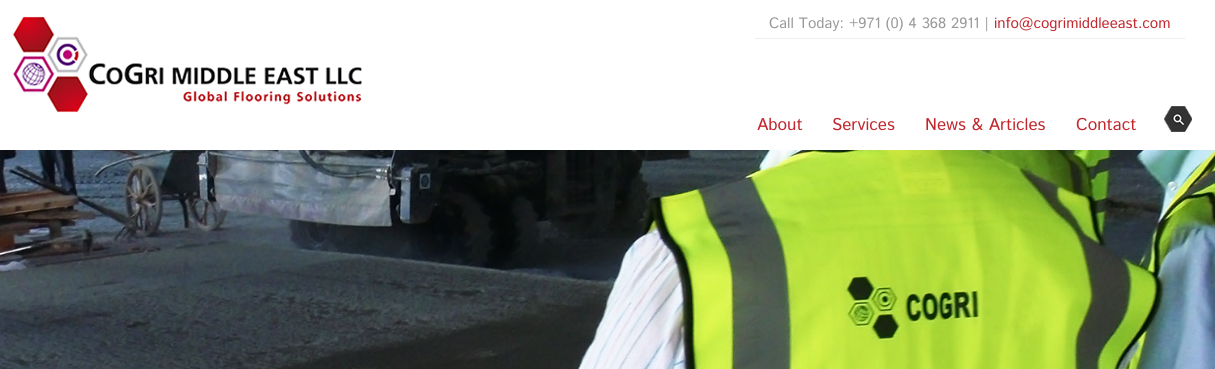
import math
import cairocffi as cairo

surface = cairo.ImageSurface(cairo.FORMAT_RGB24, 1215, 369)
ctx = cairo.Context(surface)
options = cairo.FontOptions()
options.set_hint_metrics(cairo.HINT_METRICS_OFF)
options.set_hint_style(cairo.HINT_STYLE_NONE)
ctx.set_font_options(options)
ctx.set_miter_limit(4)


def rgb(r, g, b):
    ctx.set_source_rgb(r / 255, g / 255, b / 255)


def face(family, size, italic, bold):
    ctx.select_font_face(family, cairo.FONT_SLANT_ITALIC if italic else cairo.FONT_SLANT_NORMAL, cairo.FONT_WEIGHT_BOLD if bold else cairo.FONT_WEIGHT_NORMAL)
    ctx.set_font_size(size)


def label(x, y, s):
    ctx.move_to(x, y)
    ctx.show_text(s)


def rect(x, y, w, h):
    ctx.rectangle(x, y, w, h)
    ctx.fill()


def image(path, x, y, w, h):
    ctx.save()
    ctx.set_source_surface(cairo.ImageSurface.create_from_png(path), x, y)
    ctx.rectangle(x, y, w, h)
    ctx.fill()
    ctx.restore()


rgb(255, 255, 255)
ctx.paint()
image('image0.png', 12, 16, 350, 97)
rgb(238, 238, 238)
rect(755, 38, 430, 1)
face('Istok Web', 15, 0, 0)
rgb(153, 153, 153)
label(769, 28, 'Call Today: +971 (0) 4 368 2911 |')
rgb(193, 39, 45)
label(994, 28, 'info@cogrimiddleeast.com')
face('Istok Web', 17, 0, 0)
label(757, 130, 'About')
label(832, 130, 'Services')
label(925, 130, 'News & Articles')
label(1076, 130, 'Contact')
image('image1.png', 1164, 106, 28, 26)
image('image2.png', 0, 150, 1215, 219)
surface.write_to_png('render.png')
